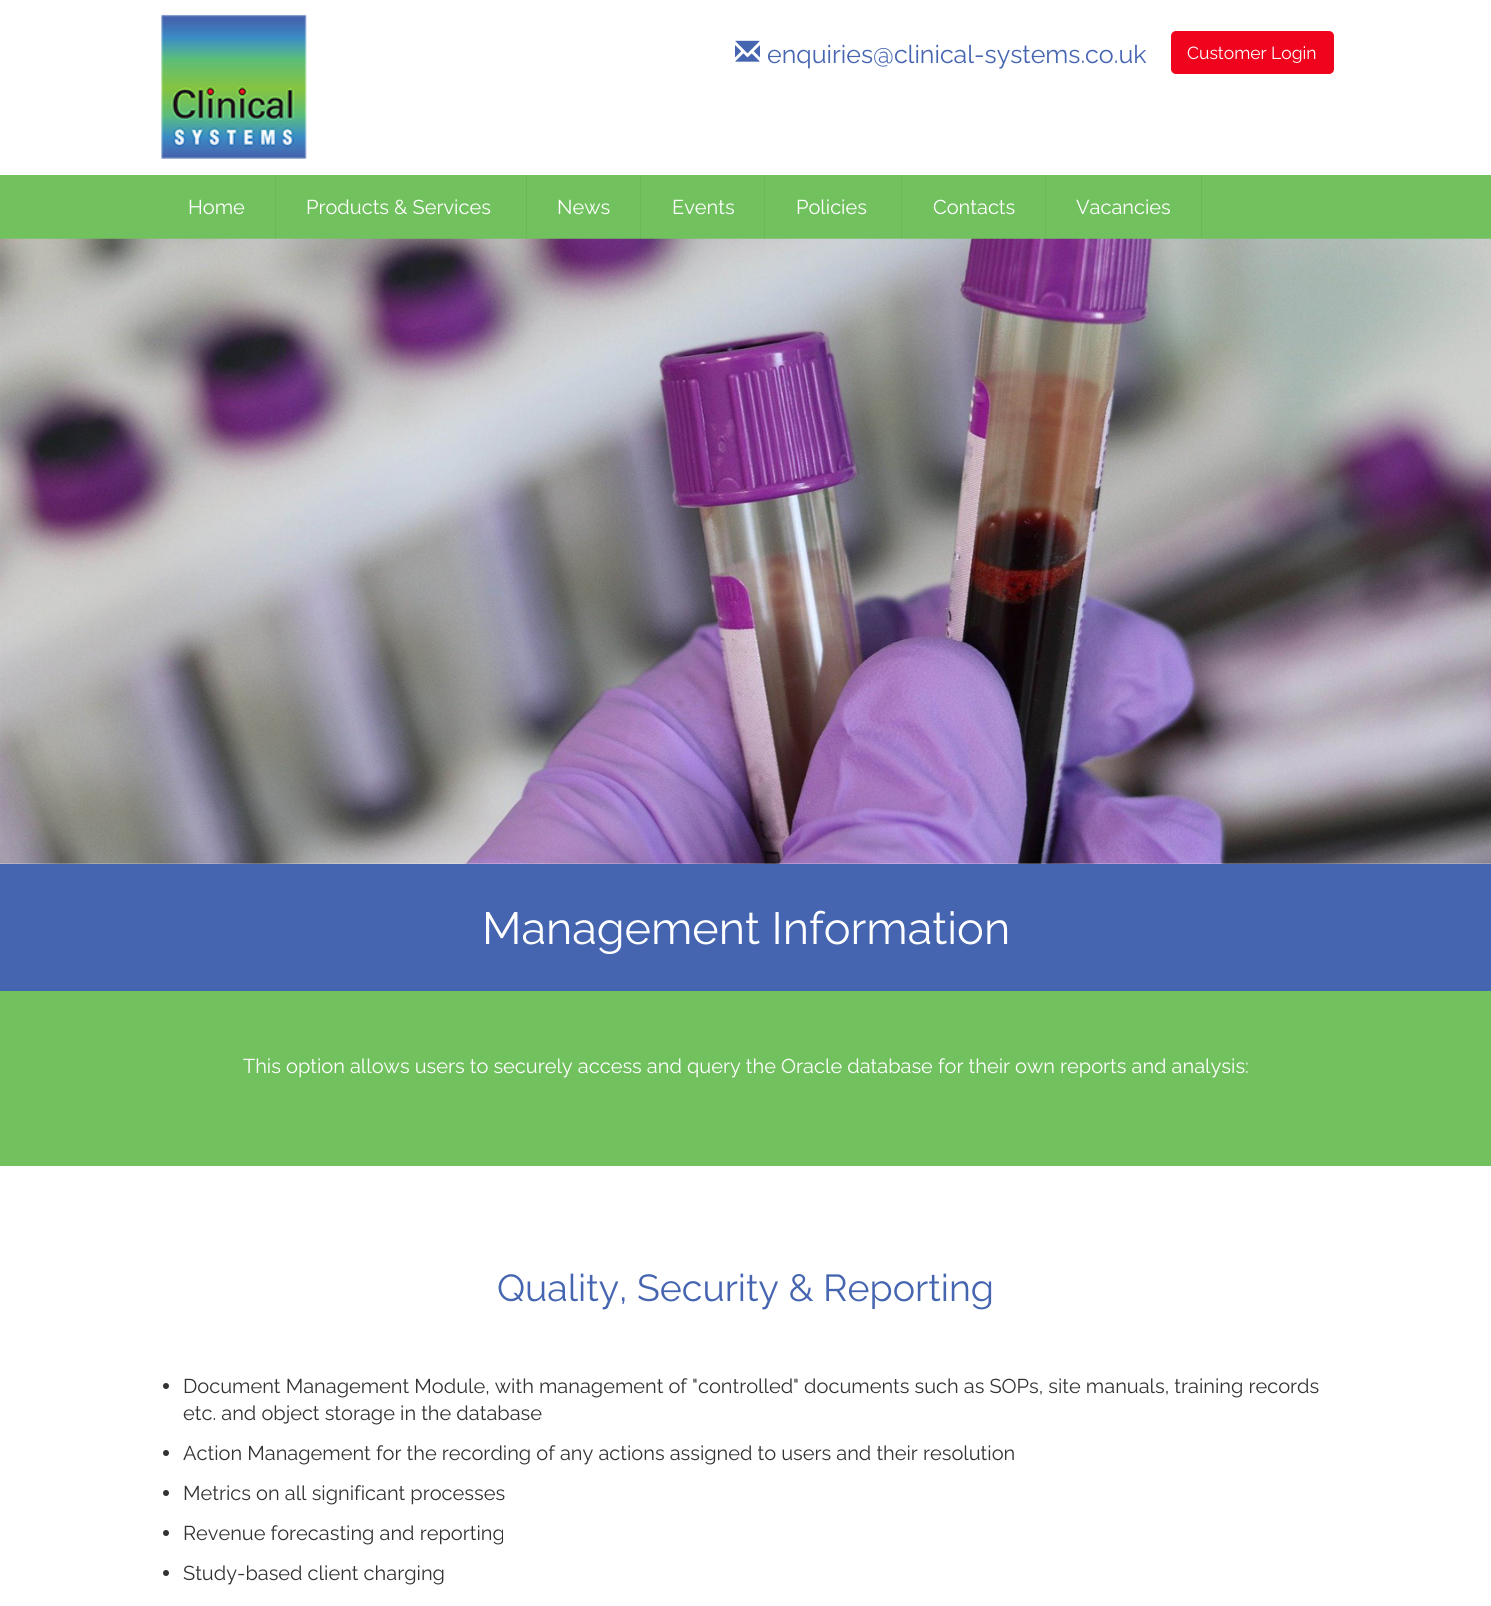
import math
import cairocffi as cairo

surface = cairo.ImageSurface(cairo.FORMAT_RGB24, 1491, 1606)
ctx = cairo.Context(surface)
options = cairo.FontOptions()
options.set_hint_metrics(cairo.HINT_METRICS_OFF)
options.set_hint_style(cairo.HINT_STYLE_NONE)
ctx.set_font_options(options)
ctx.set_miter_limit(4)


def rgb(r, g, b):
    ctx.set_source_rgb(r / 255, g / 255, b / 255)


def face(family, size, italic, bold):
    ctx.select_font_face(family, cairo.FONT_SLANT_ITALIC if italic else cairo.FONT_SLANT_NORMAL, cairo.FONT_WEIGHT_BOLD if bold else cairo.FONT_WEIGHT_NORMAL)
    ctx.set_font_size(size)


def label(x, y, s):
    ctx.move_to(x, y)
    ctx.show_text(s)


def rect(x, y, w, h):
    ctx.rectangle(x, y, w, h)
    ctx.fill()


def rrect(x, y, w, h, r):
    ctx.new_sub_path()
    for i, (u, v) in enumerate([(x + w - r, y + h - r), (x + r, y + h - r), (x + r, y + r), (x + w - r, y + r)]):
        ctx.arc(u, v, r, i * math.pi / 2, (i + 1) * math.pi / 2)
    ctx.close_path()


def image(path, x, y, w, h):
    ctx.save()
    ctx.set_source_surface(cairo.ImageSurface.create_from_png(path), x, y)
    ctx.rectangle(x, y, w, h)
    ctx.fill()
    ctx.restore()


rgb(255, 255, 255)
ctx.paint()
image('image0.png', 161, 14, 146, 145)
image('image1.png', 735, 40, 25, 22)
face('Raleway', 25, 0, 0)
rgb(69, 101, 176)
label(767, 63, 'enquiries@clinical-systems.co.uk')
rgb(240, 4, 29)
rrect(1171, 31, 163, 43, 5)
ctx.fill()
face('Raleway', 17.5, 0, 0)
rgb(255, 255, 255)
label(1187, 59, 'Customer Login')
rgb(113, 193, 95)
rect(0, 175, 1491, 64)
rgb(107, 183, 90)
rect(275, 175, 1, 64)
face('Raleway', 20, 0, 0)
rgb(255, 255, 255)
label(188, 214, 'Home')
rgb(107, 183, 90)
rect(526, 175, 1, 64)
rgb(255, 255, 255)
label(306, 214, 'Products & Services')
rgb(107, 183, 90)
rect(640, 175, 1, 64)
rgb(255, 255, 255)
label(557, 214, 'News')
rgb(107, 183, 90)
rect(764, 175, 1, 64)
rgb(255, 255, 255)
label(672, 214, 'Events')
rgb(107, 183, 90)
rect(901, 175, 1, 64)
rgb(255, 255, 255)
label(796, 214, 'Policies')
rgb(107, 183, 90)
rect(1045, 175, 1, 64)
rgb(255, 255, 255)
label(933, 214, 'Contacts')
rgb(107, 183, 90)
rect(1201, 175, 1, 64)
rgb(255, 255, 255)
label(1076, 214, 'Vacancies')
image('image2.png', 0, 238, 1491, 626)
rgb(69, 101, 176)
rect(0, 864, 1491, 127)
face('Raleway', 45, 0, 0)
rgb(255, 255, 255)
label(482, 944, 'Management Information')
rgb(113, 193, 95)
rect(0, 991, 1491, 175)
face('Raleway', 20, 0, 0)
rgb(255, 255, 255)
label(243, 1073, 'This option allows users to securely access and query the Oracle database for their own reports and analysis:')
face('Raleway', 37.5, 0, 0)
rgb(69, 101, 176)
label(497, 1301, 'Quality, Security & Reporting')
rgb(51, 51, 51)
ctx.new_path()
ctx.arc(166, 1386, 3, 0, 2 * math.pi)
ctx.fill()
face('Raleway', 20, 0, 0)
label(183, 1393, 'Document Management Module, with management of "controlled" documents such as SOPs, site manuals, training records')
label(183, 1420, 'etc. and object storage in the database')
ctx.new_path()
ctx.arc(166, 1453, 3, 0, 2 * math.pi)
ctx.fill()
label(183, 1460, 'Action Management for the recording of any actions assigned to users and their resolution')
ctx.new_path()
ctx.arc(166, 1493, 3, 0, 2 * math.pi)
ctx.fill()
label(183, 1500, 'Metrics on all significant processes')
ctx.new_path()
ctx.arc(166, 1533, 3, 0, 2 * math.pi)
ctx.fill()
label(183, 1540, 'Revenue forecasting and reporting')
ctx.new_path()
ctx.arc(166, 1573, 3, 0, 2 * math.pi)
ctx.fill()
label(183, 1580, 'Study-based client charging')
surface.write_to_png('render.png')
